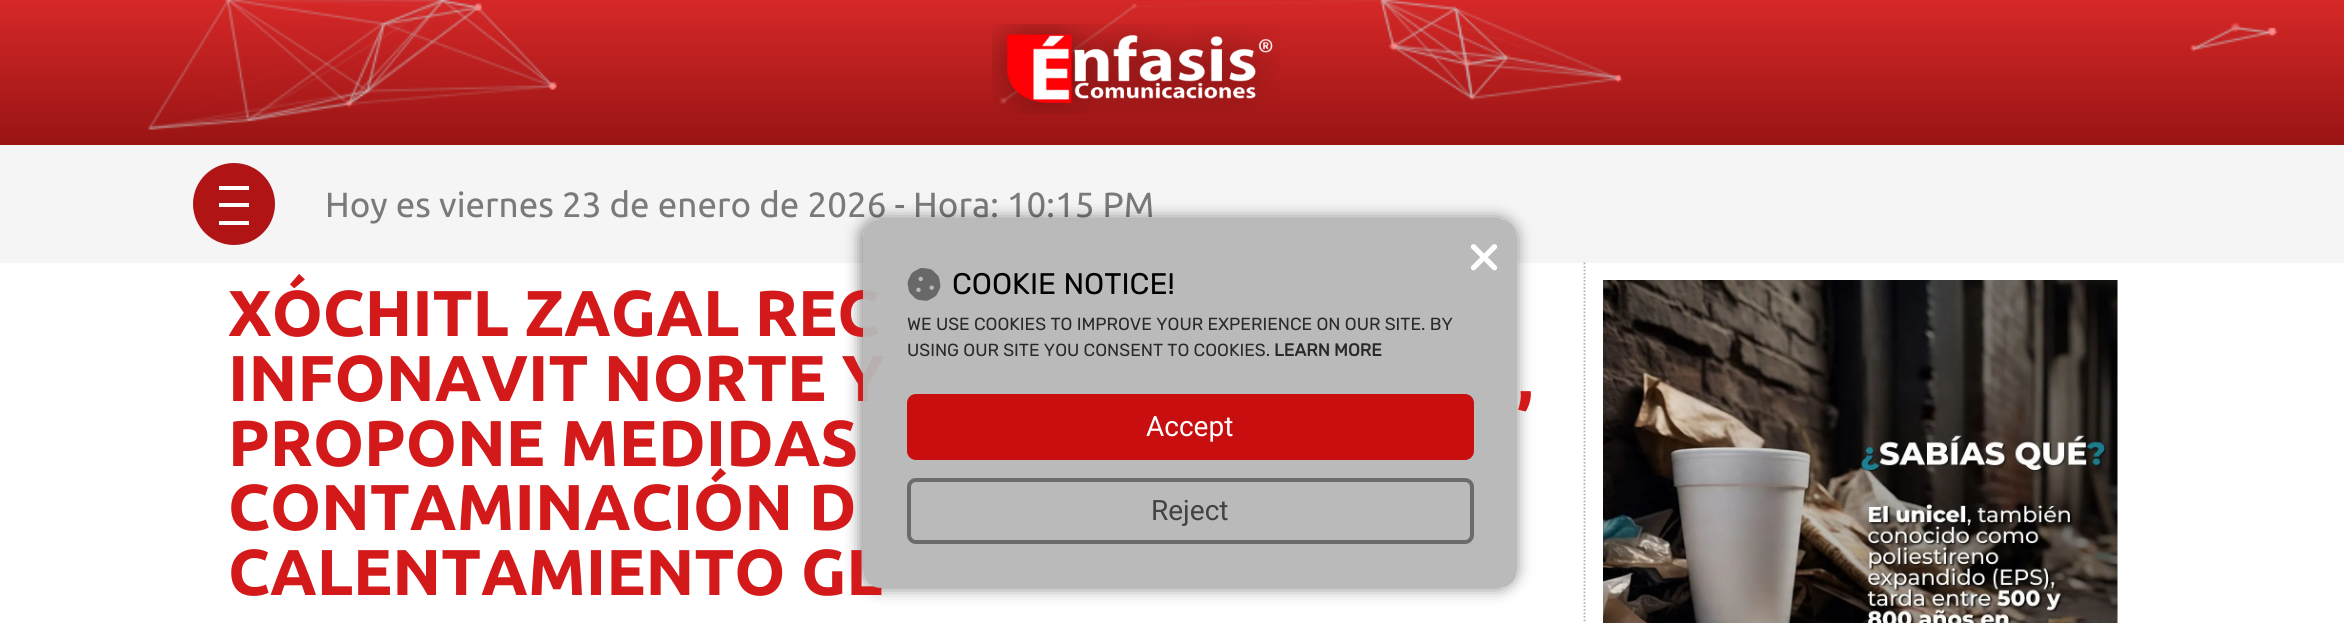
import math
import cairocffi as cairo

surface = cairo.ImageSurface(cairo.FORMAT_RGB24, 2344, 623)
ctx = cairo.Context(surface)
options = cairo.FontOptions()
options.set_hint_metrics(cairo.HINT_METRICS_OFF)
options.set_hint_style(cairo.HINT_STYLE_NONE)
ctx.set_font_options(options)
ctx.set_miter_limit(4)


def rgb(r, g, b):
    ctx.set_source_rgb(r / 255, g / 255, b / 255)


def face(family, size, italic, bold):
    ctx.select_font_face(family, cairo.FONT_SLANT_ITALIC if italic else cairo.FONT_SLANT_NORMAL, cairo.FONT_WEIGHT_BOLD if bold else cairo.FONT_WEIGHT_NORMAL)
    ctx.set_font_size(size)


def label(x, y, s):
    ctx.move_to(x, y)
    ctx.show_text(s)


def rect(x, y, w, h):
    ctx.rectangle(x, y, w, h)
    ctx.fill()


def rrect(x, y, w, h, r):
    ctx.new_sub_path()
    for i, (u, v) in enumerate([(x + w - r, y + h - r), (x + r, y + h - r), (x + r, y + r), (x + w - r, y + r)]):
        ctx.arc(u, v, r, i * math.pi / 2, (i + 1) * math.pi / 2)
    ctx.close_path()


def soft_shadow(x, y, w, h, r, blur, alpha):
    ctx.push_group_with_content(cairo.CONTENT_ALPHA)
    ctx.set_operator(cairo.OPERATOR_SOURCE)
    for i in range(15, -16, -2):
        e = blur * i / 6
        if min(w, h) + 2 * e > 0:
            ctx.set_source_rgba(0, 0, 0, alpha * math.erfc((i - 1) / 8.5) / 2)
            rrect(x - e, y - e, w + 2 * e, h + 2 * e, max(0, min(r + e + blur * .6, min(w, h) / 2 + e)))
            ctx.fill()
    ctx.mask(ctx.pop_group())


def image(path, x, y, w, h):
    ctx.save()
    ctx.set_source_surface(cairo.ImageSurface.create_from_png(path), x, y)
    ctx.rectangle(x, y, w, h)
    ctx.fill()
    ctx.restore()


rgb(255, 255, 255)
ctx.paint()
gradient = cairo.LinearGradient(1173, 0, 1173, 145)
gradient.add_color_stop_rgba(0, 0.839, 0.157, 0.157, 1)
gradient.add_color_stop_rgba(1, 0.6, 0.078, 0.078, 1)
ctx.set_source(gradient)
rect(0, 0, 2344, 145)
image('image0.png', 148, 0, 2130, 130)
image('image1.png', 992, 24, 289, 90)
rgb(245, 245, 245)
rect(0, 145, 2344, 118)
rgb(177, 20, 20)
ctx.arc(234, 204, 41, 0, 2 * math.pi)
ctx.fill()
rgb(255, 255, 255)
rect(219, 203, 30, 4)
rect(219, 186, 30, 4)
rect(219, 221, 30, 4)
face('Ubuntu', 35, 0, 0)
rgb(122, 122, 122)
label(325, 217, 'Hoy es viernes 23 de enero de 2026 - Hora: 10:15 PM')
ctx.save()
ctx.set_fill_rule(cairo.FILL_RULE_EVEN_ODD)
ctx.new_path()
ctx.move_to(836, 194)
ctx.line_to(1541, 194)
ctx.line_to(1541, 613)
ctx.line_to(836, 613)
ctx.close_path()
ctx.move_to(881, 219)
ctx.line_to(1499, 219)
ctx.curve_to(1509, 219, 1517, 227, 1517, 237)
ctx.line_to(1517, 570)
ctx.curve_to(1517, 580, 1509, 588, 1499, 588)
ctx.line_to(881, 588)
ctx.curve_to(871, 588, 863, 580, 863, 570)
ctx.line_to(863, 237)
ctx.curve_to(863, 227, 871, 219, 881, 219)
ctx.close_path()
ctx.clip()
rgb(0, 0, 0)
soft_shadow(861, 219, 655, 369, 18, 8, 0.5)
ctx.restore()
face('Ubuntu', 64.75, 0, 1)
rgb(211, 25, 25)
label(228, 336, 'XÓCHITL ZAGAL REC')
label(228, 401, 'INFONAVIT NORTE Y')
label(228, 595, 'CALENTAMIENTO GL')
ctx.set_source_rgba(0.718, 0.718, 0.718, 0.95)
rrect(863, 219, 654, 369, 18)
ctx.fill()
image('image2.png', 1470, 244, 28, 27)
image('image3.png', 907, 268, 34, 33)
face('Rubik', 29.75, 0, 0)
rgb(0, 0, 0)
label(952, 294, 'COOKIE NOTICE!')
face('Rubik', 17.5, 0, 0)
rgb(42, 42, 42)
label(907, 330, 'WE USE COOKIES TO IMPROVE YOUR EXPERIENCE ON OUR SITE. BY')
label(907, 356, 'USING OUR SITE YOU CONSENT TO COOKIES.')
face('Rubik', 17.5, 0, 1)
label(1274, 356, 'LEARN MORE')
rgb(200, 14, 14)
rrect(907, 394, 567, 66, 9)
ctx.fill()
face('Roboto', 28, 0, 0)
rgb(255, 255, 255)
label(1146, 436, 'Accept')
rrect(909, 480, 563, 62, 7)
rgb(107, 107, 107)
ctx.set_line_width(4)
ctx.stroke()
rgb(66, 66, 66)
label(1151, 520, 'Reject')
face('Ubuntu', 64.75, 0, 1)
rgb(211, 25, 25)
label(1517, 401, ',')
label(228, 466, 'PROPONE MEDIDAS')
label(228, 530, 'CONTAMINACIÓN D')
ctx.new_path()
ctx.move_to(1584.5, 262.5)
ctx.line_to(1584.5, 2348.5)
ctx.set_source_rgba(0.329, 0.329, 0.329, 0.43)
ctx.set_line_width(1.8)
ctx.set_dash([1.75, 1.75])
ctx.stroke()
image('image4.png', 1603, 280, 515, 343)
surface.write_to_png('render.png')
